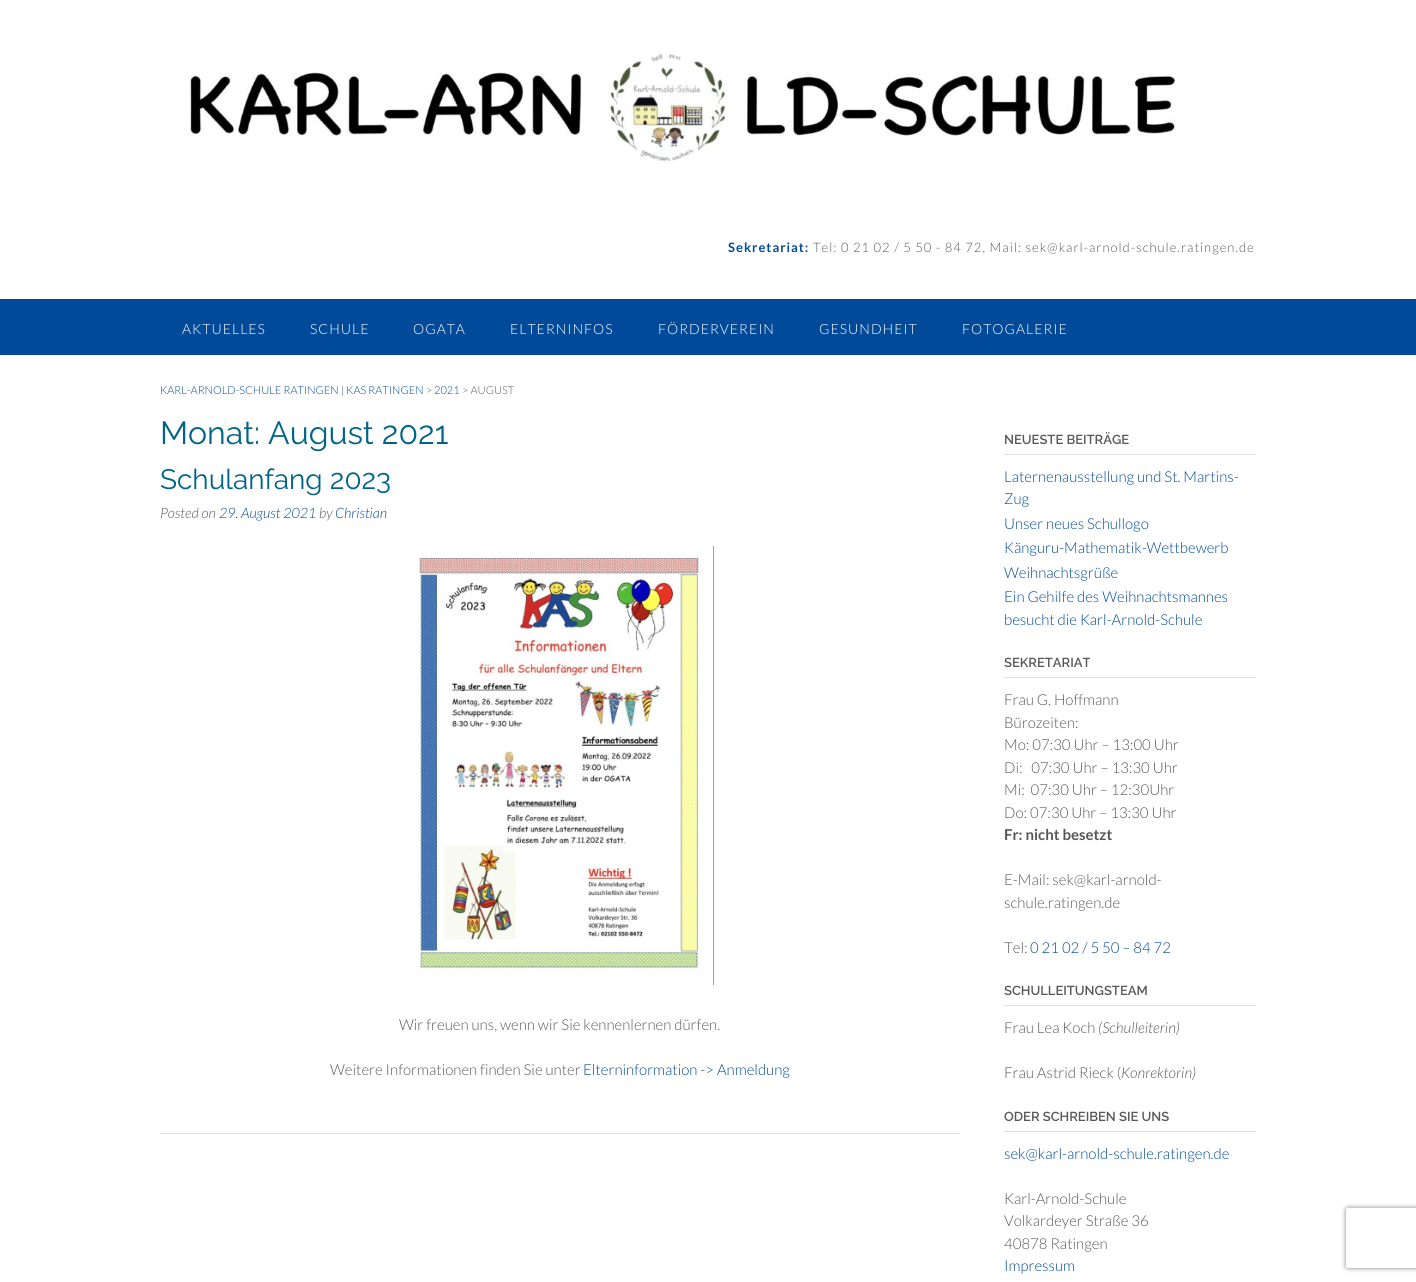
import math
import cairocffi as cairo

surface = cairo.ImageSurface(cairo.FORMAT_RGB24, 1416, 1282)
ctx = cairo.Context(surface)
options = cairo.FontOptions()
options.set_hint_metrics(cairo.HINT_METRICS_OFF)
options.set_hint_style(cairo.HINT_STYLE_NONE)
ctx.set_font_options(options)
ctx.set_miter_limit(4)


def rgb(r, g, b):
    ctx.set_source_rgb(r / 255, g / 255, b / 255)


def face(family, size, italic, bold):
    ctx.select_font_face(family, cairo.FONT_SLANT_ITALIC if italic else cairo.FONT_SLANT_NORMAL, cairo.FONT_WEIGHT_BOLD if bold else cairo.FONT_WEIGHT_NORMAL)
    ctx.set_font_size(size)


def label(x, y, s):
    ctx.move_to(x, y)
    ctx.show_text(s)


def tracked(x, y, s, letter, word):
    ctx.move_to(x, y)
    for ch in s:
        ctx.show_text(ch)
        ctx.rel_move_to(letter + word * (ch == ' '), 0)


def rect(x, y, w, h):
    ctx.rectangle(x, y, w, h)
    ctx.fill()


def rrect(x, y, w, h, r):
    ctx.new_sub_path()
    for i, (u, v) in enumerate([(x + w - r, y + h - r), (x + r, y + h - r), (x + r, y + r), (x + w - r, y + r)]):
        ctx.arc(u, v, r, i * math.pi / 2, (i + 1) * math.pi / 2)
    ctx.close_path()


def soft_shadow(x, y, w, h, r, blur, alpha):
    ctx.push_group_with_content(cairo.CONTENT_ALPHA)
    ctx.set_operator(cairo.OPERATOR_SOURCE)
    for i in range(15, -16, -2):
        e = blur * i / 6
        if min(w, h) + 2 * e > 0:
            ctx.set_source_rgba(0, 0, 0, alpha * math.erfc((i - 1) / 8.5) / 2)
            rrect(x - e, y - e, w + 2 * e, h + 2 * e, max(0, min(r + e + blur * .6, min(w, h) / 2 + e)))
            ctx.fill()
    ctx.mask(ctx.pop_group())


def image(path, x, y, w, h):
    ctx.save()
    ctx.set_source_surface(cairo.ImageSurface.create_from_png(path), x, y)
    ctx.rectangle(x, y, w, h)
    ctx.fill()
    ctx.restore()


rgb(255, 255, 255)
ctx.paint()
image('image0.png', 189, 50, 987, 114)
face('Lato', 13, 0, 1)
rgb(0, 74, 153)
tracked(728, 252, 'Sekretariat:', 1, 0)
face('Lato Light', 13, 0, 0)
rgb(88, 88, 90)
tracked(813, 252, 'Tel: 0 21 02 / 5 50 - 84 72, Mail: sek@karl-arnold-schule.ratingen.de', 1, 0)
rgb(0, 74, 153)
rect(0, 299, 1416, 56)
face('Lato Light', 14, 0, 0)
rgb(255, 255, 255)
tracked(182, 334, 'AKTUELLES', 1, 0)
tracked(310, 334, 'SCHULE', 1, 0)
tracked(413, 334, 'OGATA', 1, 0)
tracked(510, 334, 'ELTERNINFOS', 1, 0)
tracked(658, 334, 'FÖRDERVEREIN', 1, 0)
tracked(819, 334, 'GESUNDHEIT', 1, 0)
tracked(962, 334, 'FOTOGALERIE', 1, 0)
face('Lato Light', 11, 0, 0)
rgb(0, 74, 153)
label(160, 394, 'KARL-ARNOLD-SCHULE RATINGEN | KAS RATINGEN')
rgb(88, 88, 90)
label(426, 394, '>')
rgb(0, 74, 153)
label(434, 394, '2021')
rgb(88, 88, 90)
label(462, 394, '> AUGUST')
face('Raleway', 32, 0, 0)
rgb(0, 100, 137)
label(160, 444, 'Monat: August 2021')
rgb(224, 224, 224)
rect(160, 1133, 800, 1)
face('Raleway', 28, 0, 0)
rgb(0, 100, 137)
label(160, 489, 'Schulanfang 2023')
face('Lato Light', 14.25, 1, 0)
rgb(88, 88, 90)
label(160, 518, 'Posted on')
rgb(0, 74, 153)
label(219, 518, '29. August 2021')
rgb(88, 88, 90)
label(319, 518, 'by')
rgb(0, 74, 153)
label(335, 518, 'Christian')
image('image1.png', 419, 546, 295, 439)
face('Lato Light', 15, 0, 0)
rgb(88, 88, 90)
label(399, 1030, 'Wir freuen uns, wenn wir Sie kennenlernen dürfen.')
label(330, 1075, 'Weitere Informationen finden Sie unter')
rgb(0, 74, 153)
label(583, 1075, 'Elterninformation -> Anmeldung')
rgb(224, 224, 224)
rect(1004, 454, 252, 1)
face('Raleway SemiBold', 13, 0, 0)
rgb(88, 88, 90)
label(1004, 444, 'NEUESTE BEITRÄGE')
face('Lato Light', 15, 0, 0)
rgb(0, 74, 153)
label(1004, 482, 'Laternenausstellung und St. Martins-')
label(1004, 504, 'Zug')
label(1004, 529, 'Unser neues Schullogo')
label(1004, 553, 'Känguru-Mathematik-Wettbewerb')
label(1004, 578, 'Weihnachtsgrüße')
label(1004, 602, 'Ein Gehilfe des Weihnachtsmannes')
label(1004, 625, 'besucht die Karl-Arnold-Schule')
rgb(224, 224, 224)
rect(1004, 677, 252, 1)
face('Raleway SemiBold', 13, 0, 0)
rgb(88, 88, 90)
label(1004, 667, 'SEKRETARIAT')
face('Lato Light', 15, 0, 0)
label(1004, 705, 'Frau G. Hoffmann')
label(1004, 728, 'Bürozeiten:')
label(1004, 750, 'Mo: 07:30 Uhr – 13:00 Uhr')
label(1004, 773, 'Di:   07:30 Uhr – 13:30 Uhr')
label(1004, 795, 'Mi:  07:30 Uhr – 12:30Uhr')
label(1004, 818, 'Do: 07:30 Uhr – 13:30 Uhr')
face('Lato', 15, 0, 1)
label(1004, 840, 'Fr: nicht besetzt')
face('Lato Light', 15, 0, 0)
label(1004, 885, 'E-Mail: sek@karl-arnold-')
label(1004, 908, 'schule.ratingen.de')
label(1004, 953, 'Tel:')
rgb(0, 74, 153)
label(1030, 953, '0 21 02 / 5 50 – 84 72')
rgb(224, 224, 224)
rect(1004, 1005, 252, 1)
face('Raleway SemiBold', 13, 0, 0)
rgb(88, 88, 90)
label(1004, 995, 'SCHULLEITUNGSTEAM')
face('Lato Light', 15, 0, 0)
label(1004, 1033, 'Frau Lea Koch')
face('Lato Light', 15, 1, 0)
label(1098, 1033, '(Schulleiterin)')
face('Lato Light', 15, 0, 0)
label(1004, 1078, 'Frau Astrid Rieck (')
face('Lato Light', 15, 1, 0)
label(1121, 1078, 'Konrektorin)')
rgb(224, 224, 224)
rect(1004, 1131, 252, 1)
face('Raleway SemiBold', 13, 0, 0)
rgb(88, 88, 90)
label(1004, 1121, 'ODER SCHREIBEN SIE UNS')
face('Lato Light', 15, 0, 0)
rgb(0, 74, 153)
label(1004, 1159, 'sek@karl-arnold-schule.ratingen.de')
rgb(88, 88, 90)
label(1004, 1204, 'Karl-Arnold-Schule')
label(1004, 1226, 'Volkardeyer Straße 36')
label(1004, 1249, '40878 Ratingen')
rgb(0, 74, 153)
label(1004, 1271, 'Impressum')
ctx.save()
ctx.set_fill_rule(cairo.FILL_RULE_EVEN_ODD)
ctx.new_path()
ctx.move_to(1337, 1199)
ctx.line_to(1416, 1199)
ctx.line_to(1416, 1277)
ctx.line_to(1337, 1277)
ctx.close_path()
ctx.move_to(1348, 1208)
ctx.line_to(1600, 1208)
ctx.curve_to(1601, 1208, 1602, 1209, 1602, 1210)
ctx.line_to(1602, 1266)
ctx.curve_to(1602, 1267, 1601, 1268, 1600, 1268)
ctx.line_to(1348, 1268)
ctx.curve_to(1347, 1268, 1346, 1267, 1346, 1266)
ctx.line_to(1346, 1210)
ctx.curve_to(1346, 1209, 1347, 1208, 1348, 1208)
ctx.close_path()
ctx.clip()
rgb(128, 128, 128)
soft_shadow(1346, 1208, 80, 60, 2, 2.5, 1)
ctx.restore()
surface.write_to_png('render.png')
